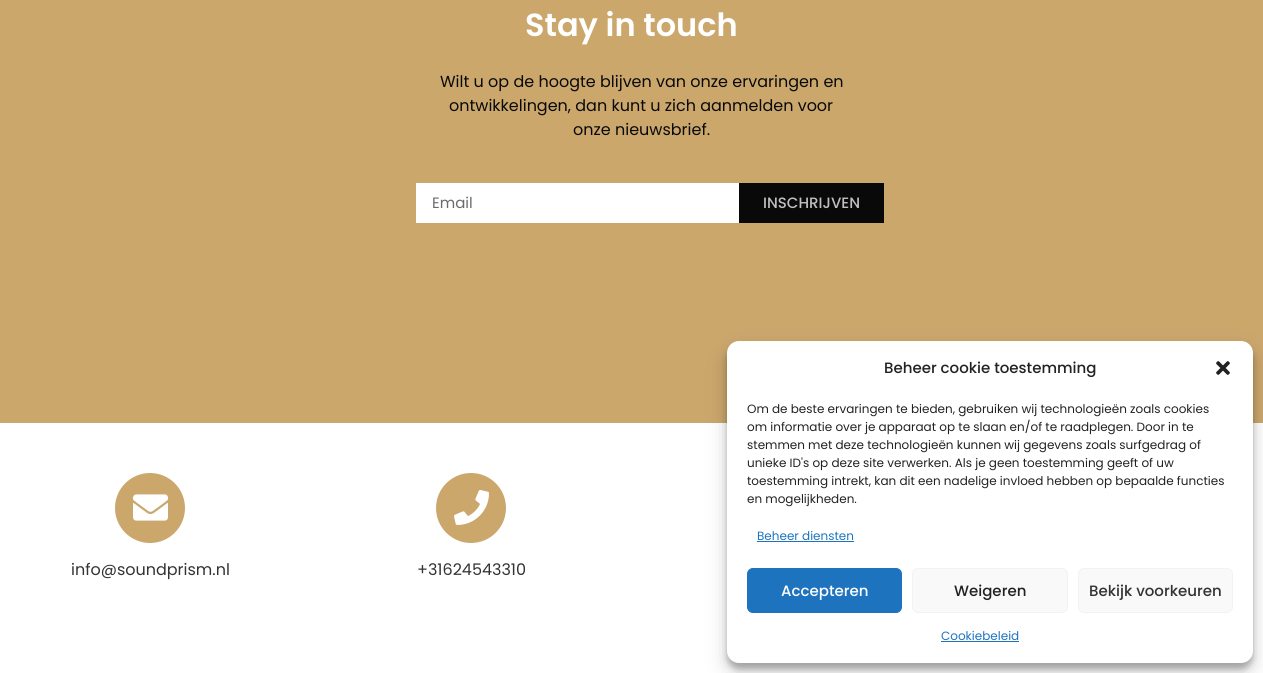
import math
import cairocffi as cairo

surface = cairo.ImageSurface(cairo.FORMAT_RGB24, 1263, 673)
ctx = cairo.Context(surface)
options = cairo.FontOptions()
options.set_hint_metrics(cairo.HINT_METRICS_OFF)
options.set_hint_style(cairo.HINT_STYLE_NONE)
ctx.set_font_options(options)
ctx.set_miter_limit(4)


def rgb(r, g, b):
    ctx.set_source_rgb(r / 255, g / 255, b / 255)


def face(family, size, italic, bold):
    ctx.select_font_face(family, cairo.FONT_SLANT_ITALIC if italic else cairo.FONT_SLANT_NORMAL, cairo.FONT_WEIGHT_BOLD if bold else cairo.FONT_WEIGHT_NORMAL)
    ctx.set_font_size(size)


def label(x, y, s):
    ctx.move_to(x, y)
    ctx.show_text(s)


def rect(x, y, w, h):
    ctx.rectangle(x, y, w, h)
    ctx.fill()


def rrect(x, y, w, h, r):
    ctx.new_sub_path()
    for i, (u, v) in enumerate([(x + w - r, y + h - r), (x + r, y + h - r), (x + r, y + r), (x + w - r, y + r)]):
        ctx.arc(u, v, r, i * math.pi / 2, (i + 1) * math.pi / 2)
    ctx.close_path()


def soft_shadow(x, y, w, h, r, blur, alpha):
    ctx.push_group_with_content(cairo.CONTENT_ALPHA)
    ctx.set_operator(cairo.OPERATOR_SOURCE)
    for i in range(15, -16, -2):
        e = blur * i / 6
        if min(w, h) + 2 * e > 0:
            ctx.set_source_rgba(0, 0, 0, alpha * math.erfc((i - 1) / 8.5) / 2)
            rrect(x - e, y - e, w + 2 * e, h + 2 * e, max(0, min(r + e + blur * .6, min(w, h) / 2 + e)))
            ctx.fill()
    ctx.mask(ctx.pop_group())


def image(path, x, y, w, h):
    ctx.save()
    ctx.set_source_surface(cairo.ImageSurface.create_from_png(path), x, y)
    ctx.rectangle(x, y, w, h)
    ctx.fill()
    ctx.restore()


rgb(255, 255, 255)
ctx.paint()
rgb(203, 167, 108)
rect(0, 0, 1263, 423)
face('Poppins SemiBold', 32, 0, 0)
rgb(255, 255, 255)
label(525, 36, 'Stay in touch')
face('Poppins', 16, 0, 0)
rgb(9, 9, 9)
label(440, 87, 'Wilt u op de hoogte blijven van onze ervaringen en')
label(449, 111, 'ontwikkelingen, dan kunt u zich aanmelden voor')
label(573, 135, 'onze nieuwsbrief.')
rgb(255, 255, 255)
rect(416, 183, 323, 40)
face('Poppins', 15, 0, 0)
rgb(107, 107, 107)
label(432, 208, 'Email')
rgb(9, 9, 9)
rect(739, 183, 145, 40)
face('Poppins Medium', 15, 0, 0)
rgb(192, 192, 192)
label(763, 208, 'INSCHRIJVEN')
rgb(203, 167, 108)
ctx.new_path()
ctx.arc(150, 508, 35, 0, 2 * math.pi)
ctx.fill()
image('image0.png', 133, 494, 35, 27)
face('Poppins', 16, 0, 0)
rgb(51, 51, 51)
label(71, 575, 'info@soundprism.nl')
rgb(203, 167, 108)
ctx.new_path()
ctx.arc(471, 508, 35, 0, 2 * math.pi)
ctx.fill()
image('image1.png', 454, 490, 35, 35)
rgb(51, 51, 51)
label(417, 575, '+31624543310')
rgb(0, 0, 0)
soft_shadow(727, 347, 526, 322, 12, 3, 0.23)
soft_shadow(727, 351, 526, 322, 12, 10, 0.19)
rgb(255, 255, 255)
rrect(727, 341, 526, 322, 12)
ctx.fill()
face('Poppins Medium', 15, 0, 0)
rgb(34, 34, 34)
label(884, 373, 'Beheer cookie toestemming')
image('image2.png', 1216, 361, 14, 14)
face('Poppins', 12, 0, 0)
label(747, 413, 'Om de beste ervaringen te bieden, gebruiken wij technologieën zoals cookies')
label(747, 431, 'om informatie over je apparaat op te slaan en/of te raadplegen. Door in te')
label(747, 449, 'stemmen met deze technologieën kunnen wij gegevens zoals surfgedrag of')
label(747, 467, 'unieke ID\'s op deze site verwerken. Als je geen toestemming geeft of uw')
label(747, 485, 'toestemming intrekt, kan dit een nadelige invloed hebben op bepaalde functies')
label(747, 503, 'en mogelijkheden.')
rgb(30, 115, 190)
label(757, 540, 'Beheer diensten')
rect(757, 541, 97, 1)
rrect(747.5, 568.5, 154, 44, 5.5)
ctx.fill_preserve()
ctx.set_line_width(1)
ctx.stroke()
face('Poppins Medium', 15, 0, 0)
rgb(255, 255, 255)
label(781, 596, 'Accepteren')
rgb(249, 249, 249)
rrect(912.5, 568.5, 155, 44, 5.5)
ctx.fill_preserve()
rgb(242, 242, 242)
ctx.stroke()
rgb(34, 34, 34)
label(954, 596, 'Weigeren')
rgb(249, 249, 249)
rrect(1078.5, 568.5, 154, 44, 5.5)
ctx.fill_preserve()
rgb(242, 242, 242)
ctx.stroke()
rgb(51, 51, 51)
label(1089, 596, 'Bekijk voorkeuren')
face('Poppins', 12, 0, 0)
rgb(30, 115, 190)
label(941, 640, 'Cookiebeleid')
rect(941, 641, 78, 1)
surface.write_to_png('render.png')
